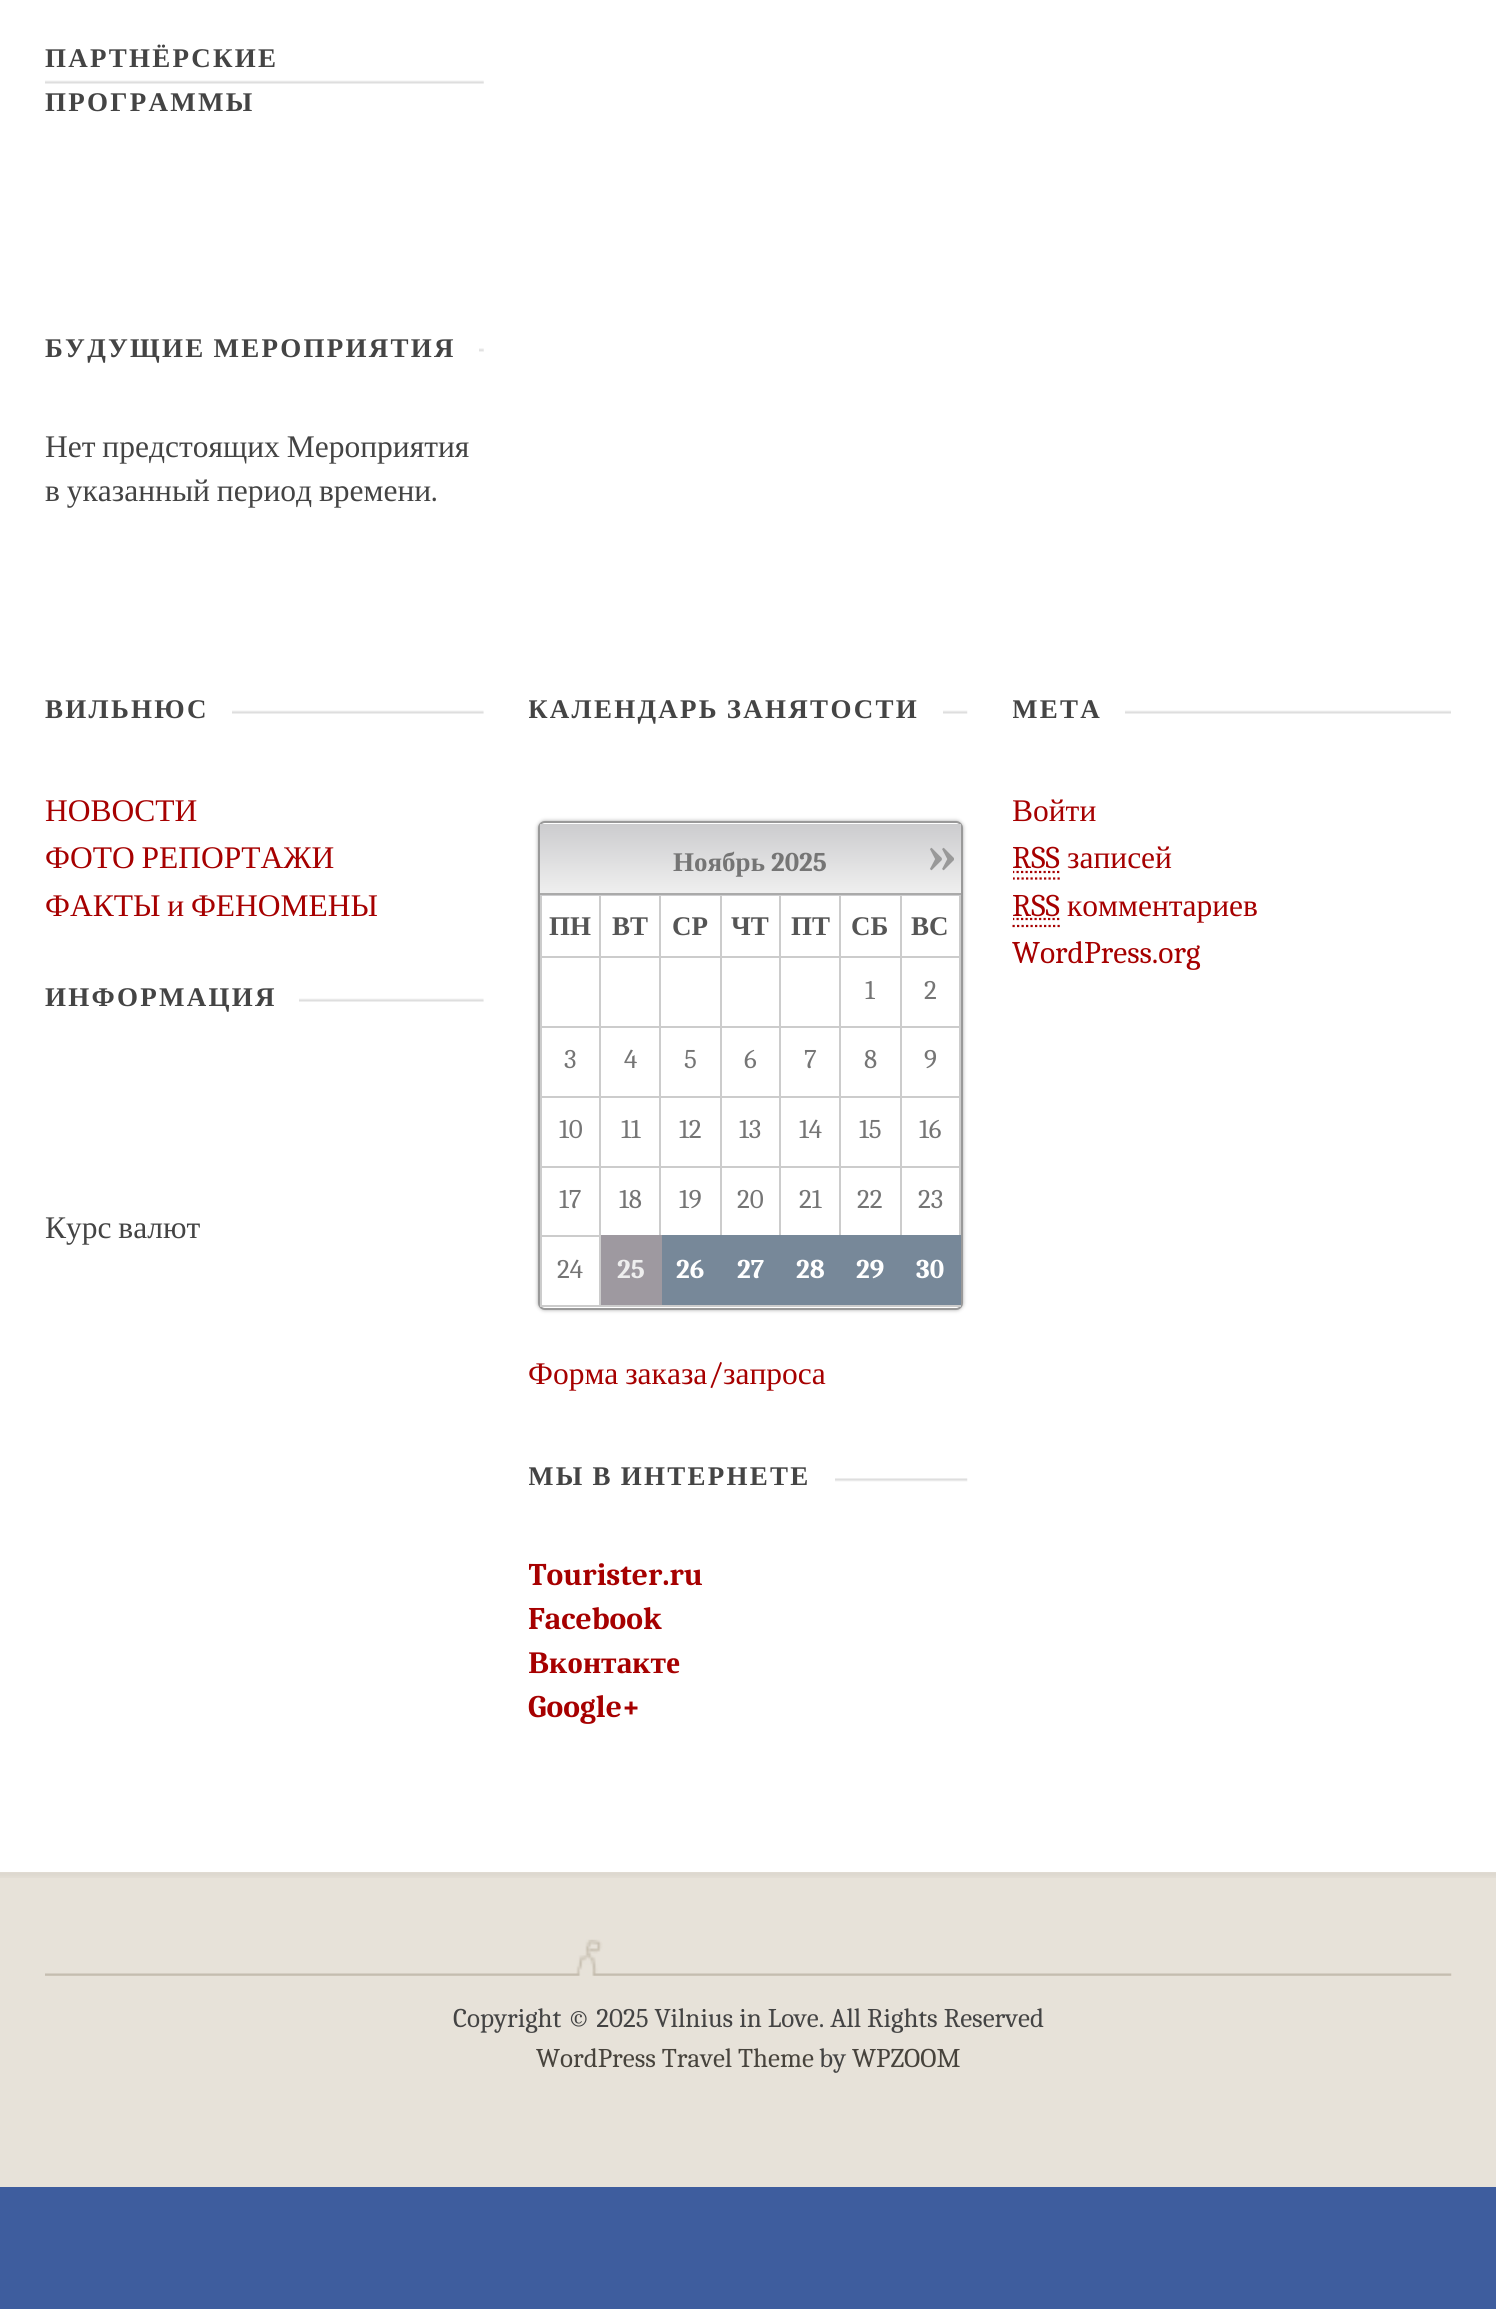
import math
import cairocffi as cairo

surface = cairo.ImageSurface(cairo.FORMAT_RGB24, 1496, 2309)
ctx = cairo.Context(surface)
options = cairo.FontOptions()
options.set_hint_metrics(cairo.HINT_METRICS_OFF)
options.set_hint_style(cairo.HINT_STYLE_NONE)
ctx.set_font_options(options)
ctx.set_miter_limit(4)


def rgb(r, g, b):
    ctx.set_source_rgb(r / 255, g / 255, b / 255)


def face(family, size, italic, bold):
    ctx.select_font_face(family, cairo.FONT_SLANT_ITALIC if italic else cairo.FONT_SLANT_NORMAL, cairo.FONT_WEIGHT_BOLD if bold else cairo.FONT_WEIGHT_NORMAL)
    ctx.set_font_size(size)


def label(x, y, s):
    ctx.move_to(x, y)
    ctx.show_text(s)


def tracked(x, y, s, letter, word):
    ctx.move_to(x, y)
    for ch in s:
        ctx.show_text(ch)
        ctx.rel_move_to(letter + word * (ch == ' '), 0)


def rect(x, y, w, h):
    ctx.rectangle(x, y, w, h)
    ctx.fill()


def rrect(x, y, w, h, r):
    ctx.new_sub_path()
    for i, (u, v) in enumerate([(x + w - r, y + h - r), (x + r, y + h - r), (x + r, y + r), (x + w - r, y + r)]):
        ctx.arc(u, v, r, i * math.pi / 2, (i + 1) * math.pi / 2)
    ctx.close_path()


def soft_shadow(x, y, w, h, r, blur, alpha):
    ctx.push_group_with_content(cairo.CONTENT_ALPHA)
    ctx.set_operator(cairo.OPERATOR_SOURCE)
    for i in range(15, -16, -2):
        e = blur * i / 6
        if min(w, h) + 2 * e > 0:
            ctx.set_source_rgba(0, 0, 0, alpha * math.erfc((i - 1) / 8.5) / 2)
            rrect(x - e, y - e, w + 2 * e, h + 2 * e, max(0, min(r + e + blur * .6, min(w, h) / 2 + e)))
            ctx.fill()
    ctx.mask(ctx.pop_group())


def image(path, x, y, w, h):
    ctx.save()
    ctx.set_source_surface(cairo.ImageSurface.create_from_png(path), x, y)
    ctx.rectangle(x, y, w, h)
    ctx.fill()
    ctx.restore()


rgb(62, 93, 158)
ctx.paint()
rgb(255, 255, 255)
rect(0, 0, 1496, 1872)
image('image0.png', 45, 80, 439, 4)
face('Liberation Serif', 27, 0, 1)
rgb(68, 68, 68)
tracked(45, 67, 'ПАРТНЁРСКИЕ', 2.25, 0)
tracked(45, 111, 'ПРОГРАММЫ', 2.25, 0)
image('image1.png', 479, 348, 5, 4)
tracked(45, 357, 'БУДУЩИЕ МЕРОПРИЯТИЯ', 2.25, -1)
face('Liberation Serif', 31.5, 0, 0)
tracked(45, 457, 'Нет предстоящих Мероприятия', 0, -1)
tracked(45, 501, 'в указанный период времени', 0, -1)
face('Caladea', 31.5, 0, 0)
label(431, 501, '.')
image('image2.png', 232, 710, 252, 4)
face('Liberation Serif', 27, 0, 1)
tracked(45, 718, 'ВИЛЬНЮС', 2.25, 0)
face('Liberation Serif', 31.5, 0, 0)
rgb(166, 0, 0)
label(45, 821, 'НОВОСТИ')
tracked(45, 868, 'ФОТО РЕПОРТАЖИ', 0, -1)
tracked(45, 916, 'ФАКТЫ и ФЕНОМЕНЫ', 0, -1)
image('image3.png', 299, 998, 185, 4)
face('Liberation Serif', 27, 0, 1)
rgb(68, 68, 68)
tracked(45, 1006, 'ИНФОРМАЦИЯ', 2.25, 0)
face('Liberation Serif', 31.5, 0, 0)
tracked(45, 1238, 'Курс валют', 0, -1)
image('image4.png', 943, 710, 25, 4)
ctx.save()
ctx.rectangle(529, 689, 439, 1125)
ctx.clip()
face('Liberation Serif', 27, 0, 1)
tracked(528, 718, 'КАЛЕНДАРЬ ЗАНЯТОСТИ', 2.25, -1)
ctx.restore()
rgb(170, 170, 170)
soft_shadow(538, 821, 425, 489, 7, 2, 1)
rgb(255, 255, 255)
rrect(539, 822, 423, 487, 6)
ctx.fill_preserve()
rgb(153, 153, 153)
ctx.stroke()
gradient = cairo.LinearGradient(750, 824, 750, 893)
gradient.add_color_stop_rgba(0, 0.8, 0.8, 0.808, 1)
gradient.add_color_stop_rgba(1, 0.937, 0.937, 0.937, 1)
ctx.set_source(gradient)
rect(540, 824, 421, 69)
rgb(204, 204, 204)
rect(900, 956, 61, 2)
rect(540, 1026, 421, 2)
rect(540, 1096, 421, 2)
rect(540, 1166, 421, 2)
rect(900, 1026, 2, 212)
rect(900, 956, 2, 72)
rect(839, 956, 63, 2)
rect(839, 1026, 2, 212)
rect(839, 956, 2, 72)
rect(779, 956, 63, 2)
rect(779, 1026, 2, 212)
rect(779, 956, 2, 72)
rect(720, 956, 61, 2)
rect(720, 1026, 2, 212)
rect(720, 956, 2, 72)
rect(659, 956, 63, 2)
rect(659, 1026, 2, 212)
rect(659, 956, 2, 72)
rect(599, 956, 63, 2)
rect(540, 1305, 421, 2)
rect(599, 1026, 2, 281)
rect(599, 956, 2, 72)
rect(540, 956, 61, 2)
rect(599, 893, 2, 66)
rect(659, 893, 2, 66)
rect(720, 893, 2, 66)
rect(779, 893, 2, 66)
rect(839, 893, 2, 66)
rect(900, 893, 2, 66)
rect(540, 1235, 59, 2)
rect(540, 1026, 2, 281)
rect(540, 893, 2, 135)
rect(959, 1026, 2, 212)
rect(959, 893, 2, 135)
gradient = cairo.LinearGradient(750, 893, 750, 963)
gradient.add_color_stop_rgba(0, 0.8, 0.8, 0.808, 1)
gradient.add_color_stop_rgba(1, 0.937, 0.937, 0.937, 1)
ctx.set_source(gradient)
rect(540, 895, 421, 1)
rgb(170, 170, 170)
rect(540, 893, 421, 2)
face('Caladea', 54, 0, 1)
rgb(153, 153, 153)
label(928, 872, '»')
face('Liberation Serif', 27, 0, 1)
rgb(117, 117, 117)
label(673, 871, 'Ноябрь')
face('Caladea', 27, 0, 1)
label(771, 871, '2025')
face('Liberation Serif', 27, 0, 1)
rgb(85, 85, 85)
label(549, 935, 'ПН')
label(612, 935, 'ВТ')
label(672, 935, 'СР')
label(731, 935, 'ЧТ')
label(791, 935, 'ПТ')
label(851, 935, 'СБ')
label(911, 935, 'ВС')
face('Caladea', 27, 0, 0)
rgb(117, 117, 117)
label(865, 999, '1')
label(924, 999, '2')
label(564, 1068, '3')
label(624, 1068, '4')
label(684, 1068, '5')
label(744, 1068, '6')
label(804, 1068, '7')
label(864, 1068, '8')
label(924, 1068, '9')
label(559, 1138, '10')
label(621, 1138, '11')
label(679, 1138, '12')
label(739, 1138, '13')
label(799, 1138, '14')
label(859, 1138, '15')
label(919, 1138, '16')
label(559, 1208, '17')
label(619, 1208, '18')
label(679, 1208, '19')
label(737, 1208, '20')
label(799, 1208, '21')
label(857, 1208, '22')
label(918, 1208, '23')
label(557, 1278, '24')
rgb(158, 153, 160)
rect(601, 1235, 61, 70)
face('Caladea', 27, 0, 1)
rgb(238, 238, 238)
label(617, 1278, '25')
rgb(119, 136, 153)
rect(662, 1235, 299, 70)
rgb(255, 255, 255)
label(676, 1278, '26')
label(737, 1278, '27')
label(796, 1278, '28')
label(856, 1278, '29')
label(916, 1278, '30')
face('Liberation Serif', 31.5, 0, 0)
rgb(166, 0, 0)
tracked(528, 1384, 'Форма заказа', 0, -1)
face('Caladea', 31.5, 0, 0)
label(708, 1384, '/')
face('Liberation Serif', 31.5, 0, 0)
label(723, 1384, 'запроса')
image('image5.png', 835, 1478, 133, 4)
ctx.save()
ctx.rectangle(529, 689, 439, 1125)
ctx.clip()
face('Liberation Serif', 27, 0, 1)
rgb(68, 68, 68)
tracked(528, 1485, 'МЫ В ИНТЕРНЕТЕ', 2.25, -1)
face('Caladea', 31.5, 0, 1)
rgb(166, 0, 0)
label(528, 1585, 'Tourister.ru')
ctx.restore()
face('Caladea', 31.5, 0, 1)
label(528, 1629, 'Facebook')
ctx.save()
ctx.rectangle(529, 689, 439, 1125)
ctx.clip()
face('Liberation Serif', 31.5, 0, 1)
label(528, 1673, 'Вконтакте')
ctx.restore()
label(528, 1717, 'Google+')
image('image6.png', 1012, 710, 439, 4)
rgb(255, 255, 255)
rect(1013, 710, 112, 4)
ctx.save()
ctx.rectangle(1013, 689, 438, 337)
ctx.clip()
face('Liberation Serif', 27, 0, 1)
rgb(68, 68, 68)
tracked(1012, 718, 'МЕТА', 2.25, 0)
face('Liberation Serif', 31.5, 0, 0)
rgb(166, 0, 0)
label(1012, 821, 'Войти')
ctx.restore()
face('Caladea', 31.5, 0, 0)
rgb(166, 0, 0)
label(1012, 868, 'RSS')
ctx.save()
ctx.rectangle(1013, 689, 438, 337)
ctx.clip()
ctx.new_path()
ctx.move_to(1012.5, 878.5)
ctx.line_to(1060, 878.5)
ctx.move_to(1012, 872)
ctx.line_to(1059.5, 872)
ctx.set_line_width(2.2)
ctx.set_dash([2.25, 2.25])
ctx.stroke()
ctx.restore()
face('Liberation Serif', 31.5, 0, 0)
label(1067, 868, 'записей')
face('Caladea', 31.5, 0, 0)
label(1012, 916, 'RSS')
face('Liberation Serif', 31.5, 0, 0)
label(1067, 916, 'комментариев')
ctx.new_path()
ctx.move_to(1012.5, 926)
ctx.line_to(1060, 926)
ctx.set_line_width(2.2)
ctx.set_dash([2.25, 2.25])
ctx.stroke()
ctx.save()
ctx.rectangle(1013, 689, 438, 337)
ctx.clip()
ctx.new_path()
ctx.move_to(1012, 919)
ctx.line_to(1059.5, 919)
ctx.stroke()
ctx.restore()
face('Caladea', 31.5, 0, 0)
label(1012, 963, 'WordPress.org')
rgb(231, 226, 217)
rect(0, 1872, 1496, 315)
image('image7.png', 0, 1872, 1496, 6)
image('image8.png', 45, 1939, 1407, 37)
face('Caladea', 27, 0, 0)
rgb(68, 68, 68)
label(453, 2027, 'Copyright © 2025 Vilnius in Love. All Rights Reserved')
rgb(71, 67, 60)
label(536, 2067, 'WordPress Travel Theme')
rgb(68, 68, 68)
label(819, 2067, 'by')
rgb(71, 67, 60)
label(852, 2067, 'WPZOOM')
surface.write_to_png('render.png')
